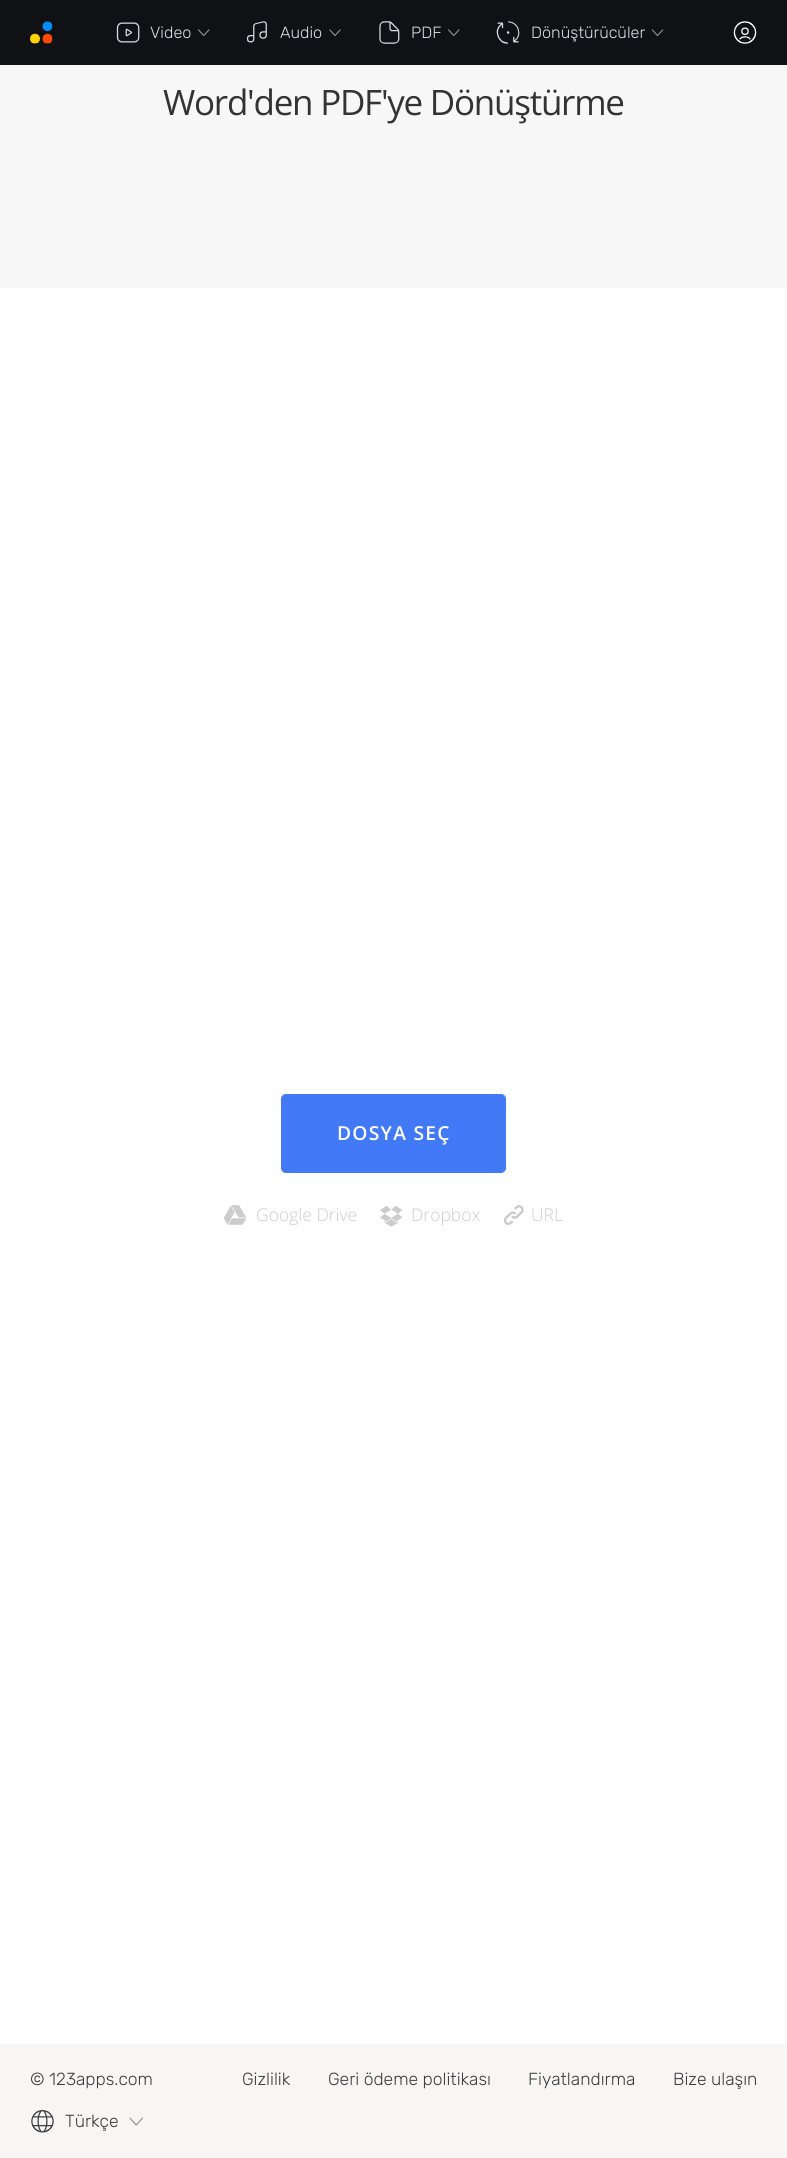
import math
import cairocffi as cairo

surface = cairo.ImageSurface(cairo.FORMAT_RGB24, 787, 2158)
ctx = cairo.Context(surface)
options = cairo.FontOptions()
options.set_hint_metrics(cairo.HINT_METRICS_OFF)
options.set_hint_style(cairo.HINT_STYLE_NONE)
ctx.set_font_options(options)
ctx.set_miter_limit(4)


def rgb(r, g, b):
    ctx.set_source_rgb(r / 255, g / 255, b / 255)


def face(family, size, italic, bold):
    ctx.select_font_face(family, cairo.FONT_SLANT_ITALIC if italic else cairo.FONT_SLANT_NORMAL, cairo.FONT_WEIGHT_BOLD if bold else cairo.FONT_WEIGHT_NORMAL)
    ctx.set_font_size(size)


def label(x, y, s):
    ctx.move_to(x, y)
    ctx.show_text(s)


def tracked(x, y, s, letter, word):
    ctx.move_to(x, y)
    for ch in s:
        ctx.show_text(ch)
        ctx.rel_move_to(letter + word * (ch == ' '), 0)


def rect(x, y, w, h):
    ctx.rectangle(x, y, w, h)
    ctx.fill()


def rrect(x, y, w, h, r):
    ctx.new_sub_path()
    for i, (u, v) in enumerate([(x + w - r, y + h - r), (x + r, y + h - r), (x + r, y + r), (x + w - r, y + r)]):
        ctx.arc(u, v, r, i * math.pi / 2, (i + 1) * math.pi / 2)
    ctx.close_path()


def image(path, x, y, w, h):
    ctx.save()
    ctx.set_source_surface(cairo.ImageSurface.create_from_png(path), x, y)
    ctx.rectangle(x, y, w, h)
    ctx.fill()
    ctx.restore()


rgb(255, 255, 255)
ctx.paint()
rgb(16, 17, 20)
rect(0, 0, 787, 65)
image('image0.png', 30, 21, 23, 23)
image('image1.png', 116, 22, 24, 21)
face('Rubik Light', 16.25, 0, 0)
rgb(217, 220, 227)
label(150, 38, 'Video')
image('image2.png', 198, 29, 12, 7)
image('image3.png', 246, 21, 21, 22)
label(280, 38, 'Audio')
image('image4.png', 329, 29, 12, 7)
image('image5.png', 379, 21, 21, 23)
label(411, 38, 'PDF')
image('image2.png', 448, 29, 12, 7)
image('image6.png', 496, 21, 24, 23)
label(531, 38, 'Dönüştürücüler')
image('image7.png', 651, 29, 13, 7)
image('image8.png', 733, 21, 24, 23)
rgb(247, 247, 247)
rect(0, 65, 787, 223)
face('Open Sans', 35, 0, 0)
rgb(51, 51, 51)
tracked(163, 115, 'Word\'den PDF\'ye Dönüştürme', -1.25, 0)
rgb(65, 121, 247)
rrect(281.5, 1094.5, 224, 78, 4.5)
ctx.fill_preserve()
ctx.set_line_width(1)
ctx.stroke()
face('Open Sans SemiBold', 19.25, 0, 0)
rgb(255, 255, 255)
tracked(337, 1140, 'DOSYA SEÇ', 1.25, 0)
image('image9.png', 224, 1205, 22, 20)
face('Open Sans Light', 17.5, 0, 0)
rgb(204, 204, 204)
label(256, 1221, 'Google Drive')
image('image10.png', 380, 1206, 23, 21)
label(411, 1221, 'Dropbox')
image('image11.png', 504, 1205, 20, 20)
label(531, 1221, 'URL')
rgb(247, 246, 245)
rect(0, 2044, 787, 114)
face('Rubik Light', 17.5, 0, 0)
rgb(61, 63, 66)
label(30, 2085, '© 123apps.com')
label(242, 2085, 'Gizlilik')
label(328, 2085, 'Geri ödeme politikası')
label(528, 2085, 'Fiyatlandırma')
label(673, 2085, 'Bize ulaşın')
image('image12.png', 31, 2110, 23, 23)
label(65, 2127, 'Türkçe')
image('image13.png', 129, 2117, 14, 9)
surface.write_to_png('render.png')
